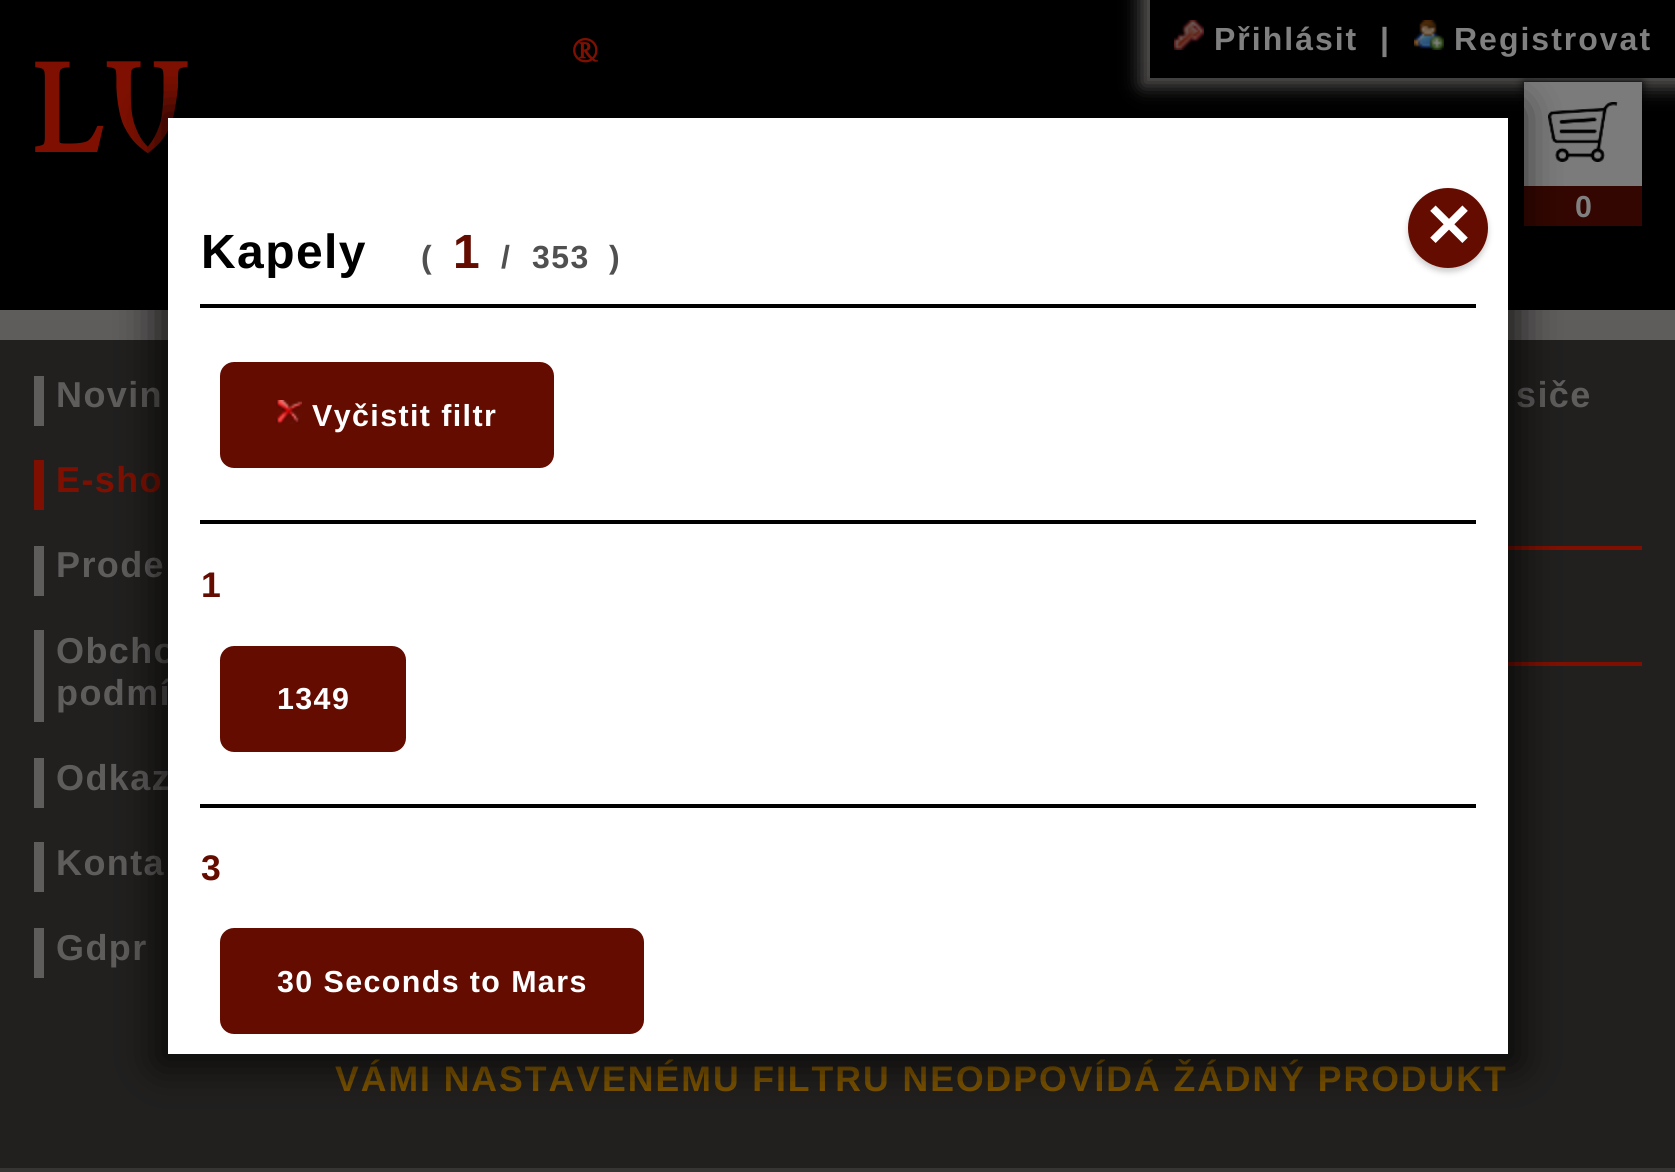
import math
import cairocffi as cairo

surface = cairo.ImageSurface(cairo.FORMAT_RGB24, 1675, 1172)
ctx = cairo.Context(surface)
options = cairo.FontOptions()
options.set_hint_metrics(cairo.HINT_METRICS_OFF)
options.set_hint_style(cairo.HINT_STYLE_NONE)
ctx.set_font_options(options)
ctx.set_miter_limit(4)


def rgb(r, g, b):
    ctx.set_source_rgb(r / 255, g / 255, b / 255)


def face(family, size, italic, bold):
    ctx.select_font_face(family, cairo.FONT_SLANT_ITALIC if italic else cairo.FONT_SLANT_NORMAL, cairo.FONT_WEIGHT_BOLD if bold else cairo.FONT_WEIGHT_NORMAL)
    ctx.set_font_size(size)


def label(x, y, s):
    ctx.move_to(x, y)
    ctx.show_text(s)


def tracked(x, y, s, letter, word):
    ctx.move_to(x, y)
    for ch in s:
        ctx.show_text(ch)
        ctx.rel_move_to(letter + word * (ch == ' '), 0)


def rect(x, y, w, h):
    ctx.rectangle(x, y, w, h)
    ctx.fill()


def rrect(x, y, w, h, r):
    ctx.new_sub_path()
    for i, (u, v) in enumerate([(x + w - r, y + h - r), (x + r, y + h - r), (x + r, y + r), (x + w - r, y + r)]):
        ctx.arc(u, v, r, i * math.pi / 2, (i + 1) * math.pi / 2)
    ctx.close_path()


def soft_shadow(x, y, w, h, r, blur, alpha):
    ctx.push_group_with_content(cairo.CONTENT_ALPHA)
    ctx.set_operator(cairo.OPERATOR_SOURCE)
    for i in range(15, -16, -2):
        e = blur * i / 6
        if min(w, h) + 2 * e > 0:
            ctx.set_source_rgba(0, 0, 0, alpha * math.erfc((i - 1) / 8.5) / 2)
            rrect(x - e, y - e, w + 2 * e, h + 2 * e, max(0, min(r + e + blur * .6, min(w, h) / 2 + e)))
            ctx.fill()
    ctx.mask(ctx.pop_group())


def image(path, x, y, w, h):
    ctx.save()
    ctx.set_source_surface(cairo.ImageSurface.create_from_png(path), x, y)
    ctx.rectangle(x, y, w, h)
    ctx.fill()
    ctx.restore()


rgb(33, 32, 31)
ctx.paint()
rgb(0, 0, 0)
rect(0, 0, 1675, 310)
rgb(95, 93, 92)
rect(0, 310, 1675, 30)
face('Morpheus', 36, 0, 1)
rgb(127, 16, 1)
tracked(572, 62, '®', 4, 0)
face('Morpheus', 116, 0, 1)
tracked(34, 152, 'LU', 4, 0)
ctx.save()
ctx.set_fill_rule(cairo.FILL_RULE_EVEN_ODD)
ctx.new_path()
ctx.move_to(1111, 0)
ctx.line_to(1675, 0)
ctx.line_to(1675, 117)
ctx.line_to(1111, 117)
ctx.close_path()
ctx.move_to(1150, 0)
ctx.line_to(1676, 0)
ctx.line_to(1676, 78)
ctx.line_to(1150, 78)
ctx.close_path()
ctx.clip()
rgb(95, 93, 92)
soft_shadow(1142, -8, 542, 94, 0, 10, 1)
ctx.restore()
image('image0.png', 1174, 20, 30, 30)
face('Liberation Sans', 32, 0, 1)
rgb(128, 128, 128)
tracked(1214, 50, 'Přihlásit', 2, 0)
tracked(1380, 50, '|', 2, 0)
image('image1.png', 1414, 20, 30, 30)
tracked(1454, 50, 'Registrovat', 2, 0)
rgb(0, 0, 0)
soft_shadow(1524, 82, 118, 144, 0, 5, 1)
rgb(123, 123, 123)
rect(1524, 82, 118, 104)
image('image2.png', 1548, 102, 70, 60)
rgb(51, 6, 1)
rect(1524, 186, 118, 40)
face('Liberation Sans', 30.4, 0, 1)
rgb(128, 128, 128)
label(1575, 217, '0')
rgb(95, 93, 92)
rect(34, 376, 10, 50)
face('Liberation Sans', 36, 0, 1)
tracked(56, 407, 'Novin', 1.4, 0)
rgb(127, 16, 1)
rect(34, 460, 10, 50)
tracked(56, 492, 'E-sho', 1.4, 0)
rgb(95, 93, 92)
rect(34, 546, 10, 50)
tracked(56, 577, 'Prode', 1.4, 0)
rect(34, 630, 10, 92)
tracked(56, 663, 'Obcho', 1.4, 0)
tracked(56, 705, 'podmí', 1.4, 0)
rect(34, 758, 10, 50)
tracked(56, 790, 'Odkaz', 1.4, 0)
rect(34, 842, 10, 50)
tracked(56, 875, 'Konta', 1.4, 0)
rect(34, 928, 10, 50)
tracked(56, 960, 'Gdpr', 1.4, 0)
rgb(127, 16, 1)
rect(1508, 546, 134, 4)
rgb(95, 93, 92)
tracked(1516, 407, 'siče', 1.4, 0)
rgb(127, 16, 1)
rect(1508, 662, 134, 4)
face('Liberation Sans', 35.6, 0, 1)
rgb(124, 83, 0)
tracked(335, 1091, 'VÁMI NASTAVENÉMU FILTRU NEODPOVÍDÁ ŽÁDNÝ PRODUKT', 2, -0.25)
rgb(55, 53, 51)
rect(0, 1168, 1675, 4)
rgb(0, 0, 0)
soft_shadow(158, 108, 1360, 956, 0, 21, 0.75)
rgb(255, 255, 255)
rect(168, 118, 1340, 936)
rgb(0, 0, 0)
soft_shadow(1408, 192, 80, 80, 40, 3, 0.2)
rgb(101, 12, 1)
ctx.arc(1448, 228, 40, 0, 2 * math.pi)
ctx.fill()
face('DejaVu Sans', 60, 0, 1)
rgb(255, 255, 255)
label(1423, 247, '✕')
rgb(0, 0, 0)
rect(200, 304, 1276, 4)
face('Liberation Sans', 48, 0, 1)
tracked(201, 268, 'Kapely', 1.4, 0)
face('Liberation Sans', 32, 0, 1)
rgb(80, 80, 80)
tracked(421, 268, '(', 1.4, 0)
face('Liberation Sans', 48, 0, 1)
rgb(101, 12, 1)
tracked(453, 268, '1', 1.4, 0)
face('Liberation Sans', 32, 0, 1)
rgb(80, 80, 80)
tracked(501, 268, '/', 1.4, 0)
tracked(532, 268, '353', 1.4, 0)
tracked(609, 268, ')', 1.4, 0)
rgb(101, 12, 1)
rrect(220, 362, 334, 106, 14)
ctx.fill()
image('image3.png', 276, 400, 26, 24)
face('Liberation Sans', 30.4, 0, 1)
rgb(255, 255, 255)
tracked(312, 426, 'Vyčistit filtr', 1.4, 0)
rgb(0, 0, 0)
rect(200, 520, 1276, 4)
face('Liberation Sans', 35.6, 0, 1)
rgb(101, 12, 1)
tracked(201, 597, '1', 2, 0)
rrect(220, 646, 186, 106, 14)
ctx.fill()
face('Liberation Sans', 30.4, 0, 1)
rgb(255, 255, 255)
tracked(277, 709, '1349', 1.4, 0)
rgb(0, 0, 0)
rect(200, 804, 1276, 4)
face('Liberation Sans', 35.6, 0, 1)
rgb(101, 12, 1)
tracked(201, 880, '3', 2, 0)
rrect(220, 928, 424, 106, 14)
ctx.fill()
face('Liberation Sans', 30.4, 0, 1)
rgb(255, 255, 255)
tracked(277, 992, '30 Seconds to Mars', 1.4, 0)
surface.write_to_png('render.png')
